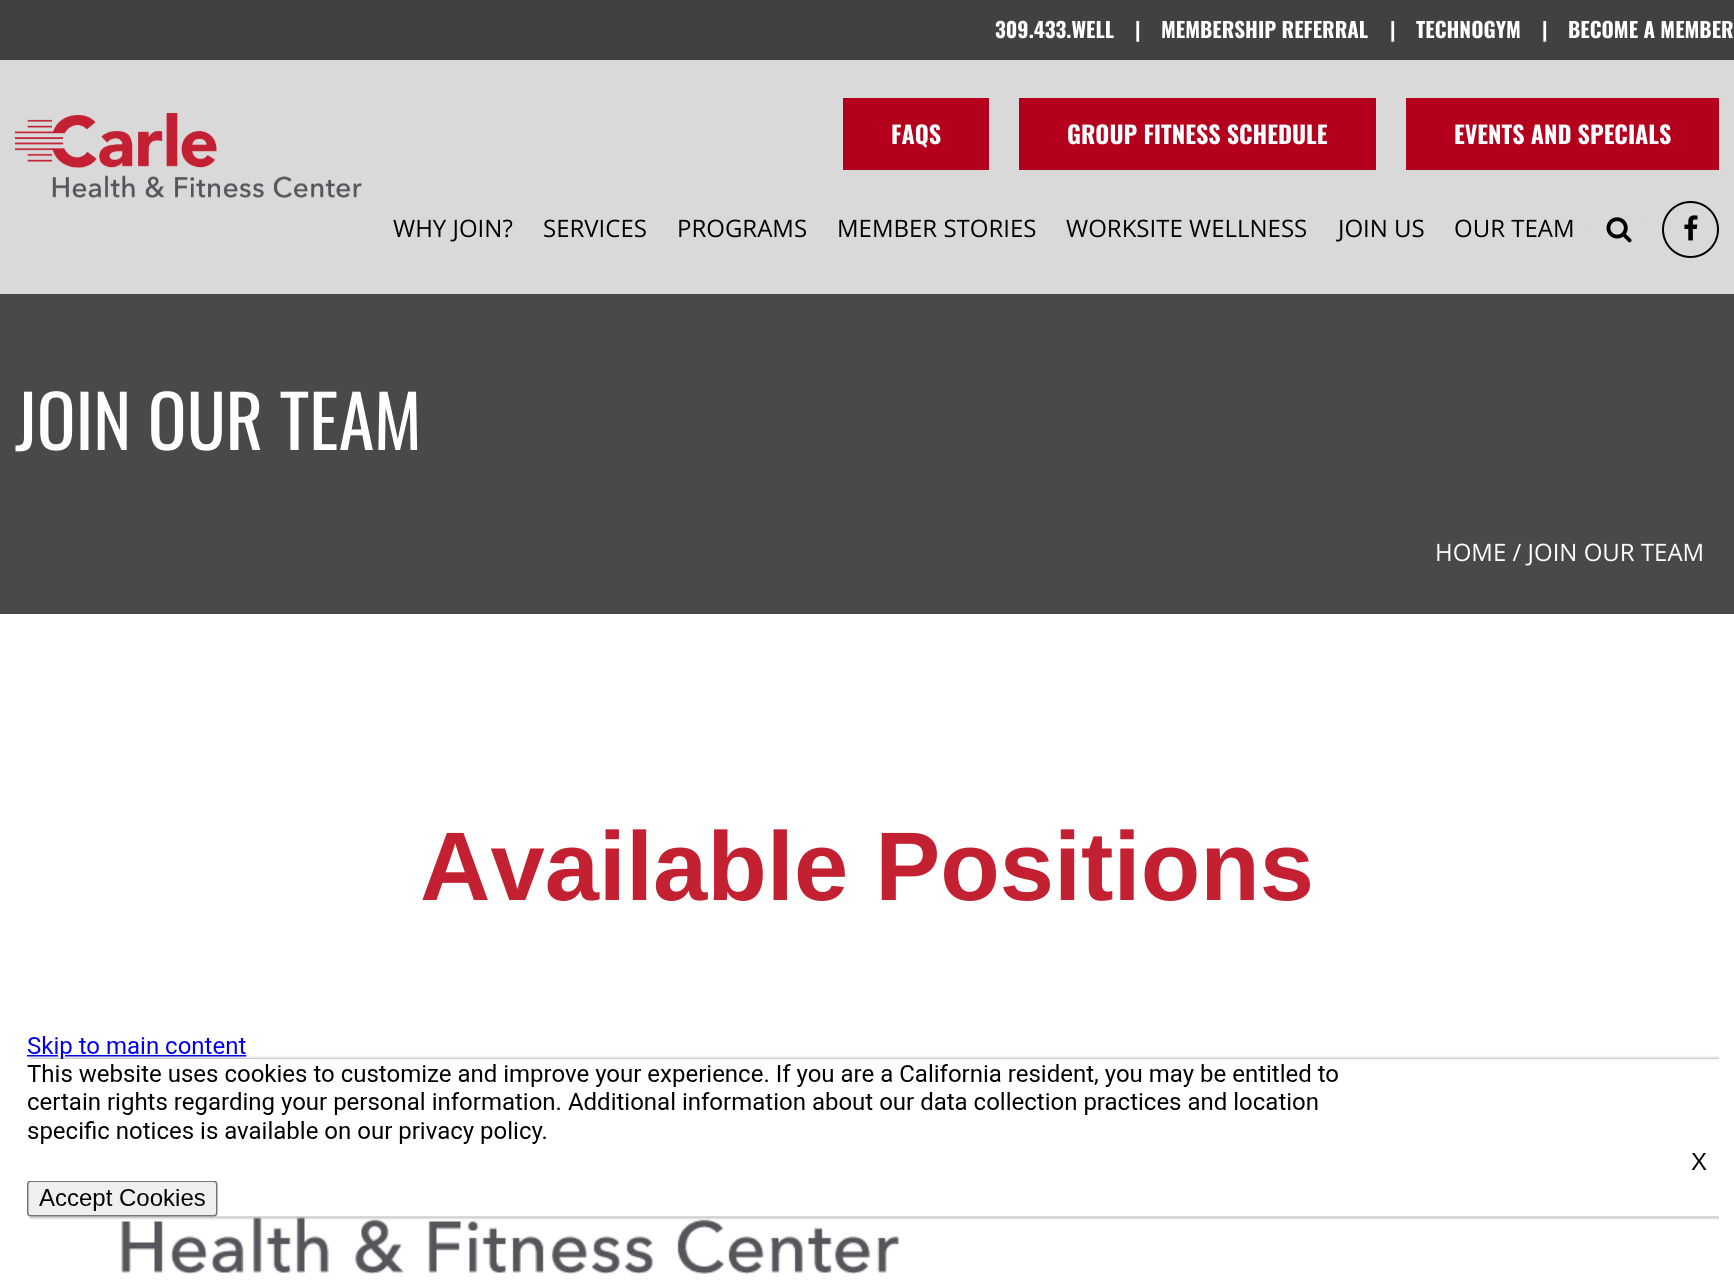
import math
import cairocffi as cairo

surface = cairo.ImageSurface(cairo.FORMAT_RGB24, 1734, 1288)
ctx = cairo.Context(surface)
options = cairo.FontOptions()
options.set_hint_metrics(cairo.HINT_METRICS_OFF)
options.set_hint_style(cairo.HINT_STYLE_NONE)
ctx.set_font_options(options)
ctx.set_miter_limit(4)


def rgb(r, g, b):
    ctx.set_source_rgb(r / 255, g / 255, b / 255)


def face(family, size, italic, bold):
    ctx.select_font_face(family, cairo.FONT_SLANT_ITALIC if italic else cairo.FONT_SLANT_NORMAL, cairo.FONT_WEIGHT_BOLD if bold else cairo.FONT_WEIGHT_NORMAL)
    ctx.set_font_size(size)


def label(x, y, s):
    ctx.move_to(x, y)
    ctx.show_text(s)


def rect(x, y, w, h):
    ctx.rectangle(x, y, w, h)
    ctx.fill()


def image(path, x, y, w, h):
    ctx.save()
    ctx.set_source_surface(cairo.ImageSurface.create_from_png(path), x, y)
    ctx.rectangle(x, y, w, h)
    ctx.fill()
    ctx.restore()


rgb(255, 255, 255)
ctx.paint()
rgb(65, 65, 65)
rect(0, 0, 1734, 60)
face('Oswald', 21, 0, 1)
rgb(255, 255, 255)
label(995, 38, '309.433.WELL')
label(1135, 38, '|')
label(1161, 38, 'MEMBERSHIP REFERRAL')
label(1390, 38, '|')
label(1416, 38, 'TECHNOGYM')
label(1542, 38, '|')
label(1568, 38, 'BECOME A MEMBER')
rgb(217, 217, 217)
rect(0, 60, 1734, 234)
image('image0.png', 15, 113, 347, 85)
rgb(180, 0, 28)
rect(843, 98, 146, 72)
face('Oswald', 24, 0, 1)
rgb(255, 255, 255)
label(891, 144, 'FAQS')
rgb(180, 0, 28)
rect(1019, 98, 357, 72)
rgb(255, 255, 255)
label(1067, 144, 'GROUP FITNESS SCHEDULE')
rgb(180, 0, 28)
rect(1406, 98, 313, 72)
rgb(255, 255, 255)
label(1454, 144, 'EVENTS AND SPECIALS')
face('Open Sans', 24, 0, 0)
rgb(0, 0, 0)
label(393, 237, 'WHY JOIN?')
label(543, 237, 'SERVICES')
label(677, 237, 'PROGRAMS')
label(837, 237, 'MEMBER STORIES')
label(1066, 237, 'WORKSITE WELLNESS')
label(1338, 237, 'JOIN US')
label(1454, 237, 'OUR TEAM')
ctx.new_path()
ctx.arc(1618.5, 229.5, 27.5, 0, 2 * math.pi)
rgb(217, 216, 214)
ctx.stroke()
image('image1.png', 1606, 217, 26, 26)
ctx.arc(1690.5, 229.5, 27.5, 0, 2 * math.pi)
rgb(0, 0, 0)
ctx.stroke()
image('image2.png', 1684, 215, 14, 26)
rgb(73, 73, 73)
rect(0, 294, 1734, 320)
face('Oswald', 72, 0, 0)
rgb(255, 255, 255)
label(15, 450, 'JOIN OUR TEAM')
face('Open Sans', 24, 0, 0)
label(1435, 561, 'HOME / JOIN OUR TEAM')
face('Liberation Sans', 97.5, 0, 1)
rgb(195, 32, 50)
label(420, 900, 'Available Positions')
image('image3.png', 27, 1036, 1692, 238)
surface.write_to_png('render.png')
